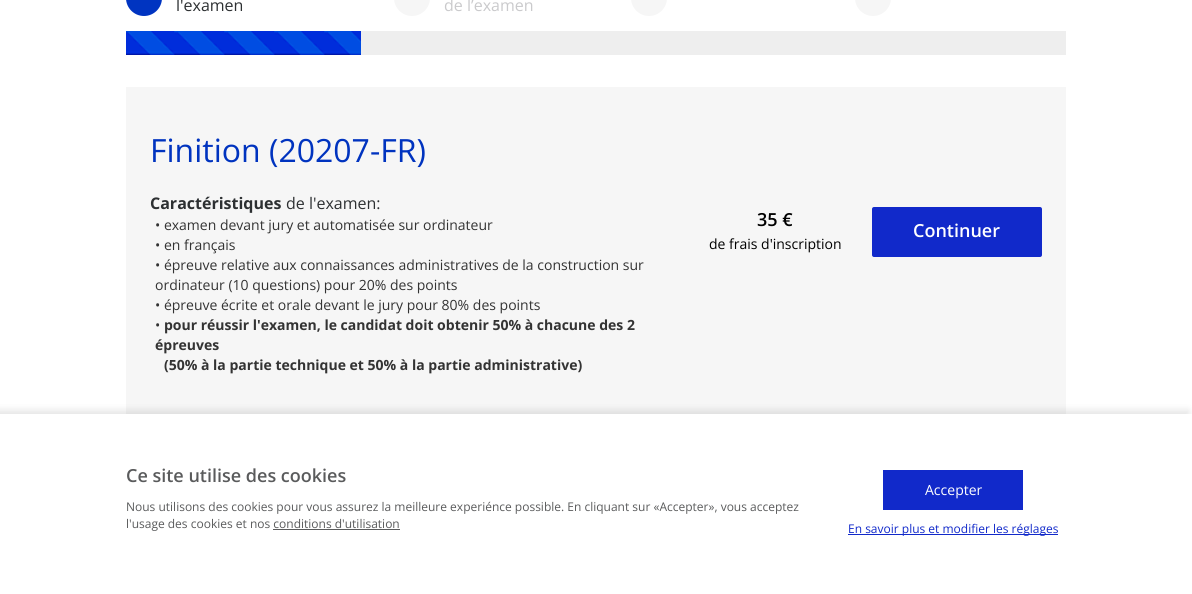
import math
import cairocffi as cairo

surface = cairo.ImageSurface(cairo.FORMAT_RGB24, 1192, 594)
ctx = cairo.Context(surface)
options = cairo.FontOptions()
options.set_hint_metrics(cairo.HINT_METRICS_OFF)
options.set_hint_style(cairo.HINT_STYLE_NONE)
ctx.set_font_options(options)
ctx.set_miter_limit(4)


def rgb(r, g, b):
    ctx.set_source_rgb(r / 255, g / 255, b / 255)


def face(family, size, italic, bold):
    ctx.select_font_face(family, cairo.FONT_SLANT_ITALIC if italic else cairo.FONT_SLANT_NORMAL, cairo.FONT_WEIGHT_BOLD if bold else cairo.FONT_WEIGHT_NORMAL)
    ctx.set_font_size(size)


def label(x, y, s):
    ctx.move_to(x, y)
    ctx.show_text(s)


def rect(x, y, w, h):
    ctx.rectangle(x, y, w, h)
    ctx.fill()


def rrect(x, y, w, h, r):
    ctx.new_sub_path()
    for i, (u, v) in enumerate([(x + w - r, y + h - r), (x + r, y + h - r), (x + r, y + r), (x + w - r, y + r)]):
        ctx.arc(u, v, r, i * math.pi / 2, (i + 1) * math.pi / 2)
    ctx.close_path()


def soft_shadow(x, y, w, h, r, blur, alpha):
    ctx.push_group_with_content(cairo.CONTENT_ALPHA)
    ctx.set_operator(cairo.OPERATOR_SOURCE)
    for i in range(15, -16, -2):
        e = blur * i / 6
        if min(w, h) + 2 * e > 0:
            ctx.set_source_rgba(0, 0, 0, alpha * math.erfc((i - 1) / 8.5) / 2)
            rrect(x - e, y - e, w + 2 * e, h + 2 * e, max(0, min(r + e + blur * .6, min(w, h) / 2 + e)))
            ctx.fill()
    ctx.mask(ctx.pop_group())


def image(path, x, y, w, h):
    ctx.save()
    ctx.set_source_surface(cairo.ImageSurface.create_from_png(path), x, y)
    ctx.rectangle(x, y, w, h)
    ctx.fill()
    ctx.restore()


rgb(255, 255, 255)
ctx.paint()
rgb(0, 52, 193)
rrect(126, -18, 36, 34, 18)
ctx.fill()
face('Open Sans', 16, 0, 0)
rgb(45, 48, 50)
label(176, 11, 'l\'examen')
image('image0.png', 126, 31, 235, 24)
rgb(246, 246, 246)
rrect(394, -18, 36, 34, 18)
ctx.fill()
rgb(202, 202, 204)
label(444, 11, 'de l’examen')
rgb(238, 238, 238)
rect(361, 31, 705, 24)
rgb(246, 246, 246)
rrect(631, -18, 36, 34, 18)
ctx.fill()
rrect(855, -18, 36, 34, 18)
ctx.fill()
rect(126, 87, 940, 327)
face('Open Sans', 32, 0, 0)
rgb(0, 51, 191)
label(150, 162, 'Finition (20207-FR)')
face('Open Sans', 16, 0, 1)
rgb(45, 48, 50)
label(150, 209, 'Caractéristiques')
face('Open Sans', 16, 0, 0)
label(286, 209, 'de l\'examen:')
face('Open Sans', 14, 0, 0)
rgb(51, 51, 51)
label(155, 230, '• examen devant jury et automatisée sur ordinateur')
label(155, 250, '• en français')
label(155, 270, '• épreuve relative aux connaissances administratives de la construction sur')
label(155, 290, 'ordinateur (10 questions) pour 20% des points')
label(155, 310, '• épreuve écrite et orale devant le jury pour 80% des points')
label(155, 330, '•')
face('Open Sans', 14, 0, 1)
label(164, 330, 'pour réussir l\'examen, le candidat doit obtenir 50% à chacune des 2')
label(155, 350, 'épreuves')
label(164, 370, '(50% à la partie technique et 50% à la partie administrative)')
face('Open Sans SemiBold', 18, 0, 0)
rgb(0, 0, 0)
label(757, 226, '35 €')
face('Open Sans', 14, 0, 0)
label(709, 249, 'de frais d\'inscription')
rgb(17, 41, 202)
rrect(872, 207, 170, 50, 2)
ctx.fill()
face('Open Sans SemiBold', 18, 0, 0)
rgb(255, 255, 255)
label(913, 237, 'Continuer')
rgb(0, 0, 0)
soft_shadow(-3, 410, 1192, 180, 0, 3.5, 0.1)
rgb(255, 255, 255)
rect(0, 414, 1192, 180)
rgb(90, 91, 92)
label(126, 482, 'Ce site utilise des cookies')
face('Open Sans', 12, 0, 0)
label(126, 511, 'Nous utilisons des cookies pour vous assurez la meilleure experiénce possible. En cliquant sur «Accepter», vous acceptez')
label(126, 528, 'l\'usage des cookies et nos conditions d\'utilisation')
rect(273, 529, 127, 1)
rgb(17, 41, 202)
rect(883, 470, 140, 40)
face('Open Sans', 14, 0, 0)
rgb(255, 255, 255)
label(925, 495, 'Accepter')
rgb(17, 41, 202)
rect(848, 534, 210, 1)
face('Open Sans', 12, 0, 0)
label(848, 533, 'En savoir plus et modifier les réglages')
surface.write_to_png('render.png')
